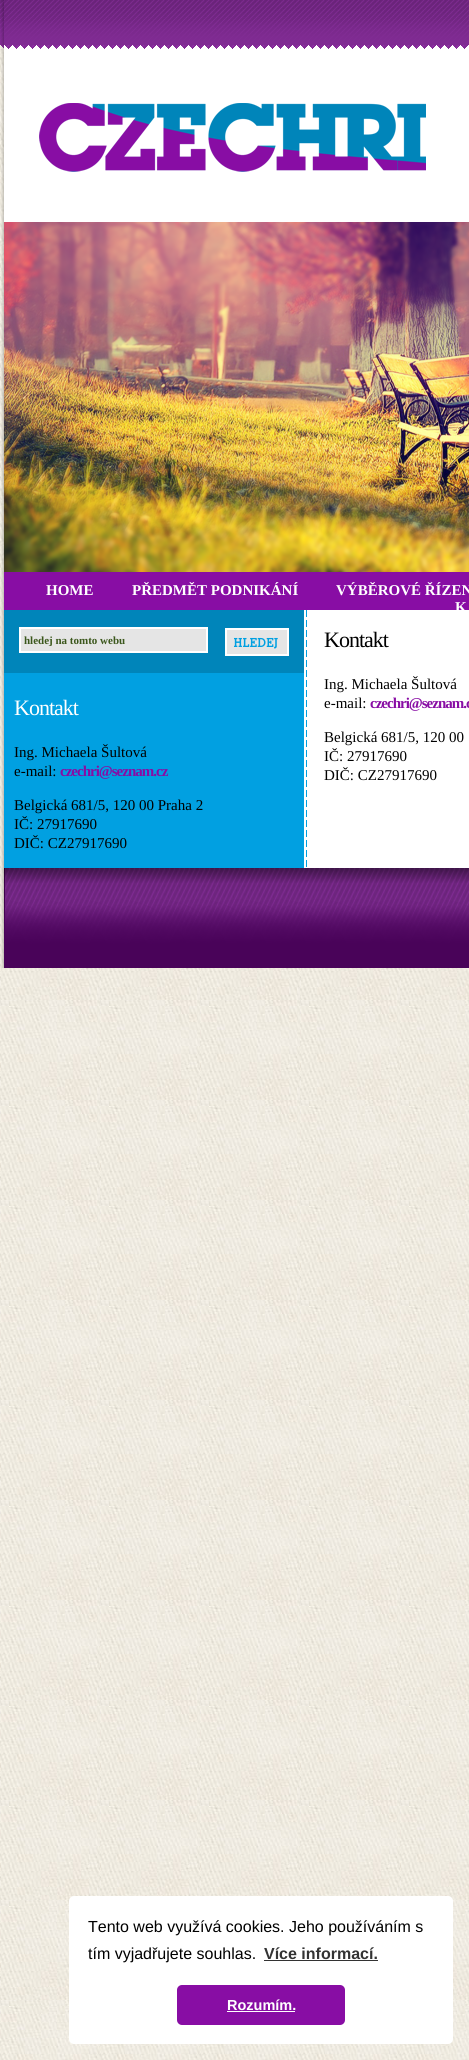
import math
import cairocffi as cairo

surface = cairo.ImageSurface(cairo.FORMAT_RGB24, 469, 2060)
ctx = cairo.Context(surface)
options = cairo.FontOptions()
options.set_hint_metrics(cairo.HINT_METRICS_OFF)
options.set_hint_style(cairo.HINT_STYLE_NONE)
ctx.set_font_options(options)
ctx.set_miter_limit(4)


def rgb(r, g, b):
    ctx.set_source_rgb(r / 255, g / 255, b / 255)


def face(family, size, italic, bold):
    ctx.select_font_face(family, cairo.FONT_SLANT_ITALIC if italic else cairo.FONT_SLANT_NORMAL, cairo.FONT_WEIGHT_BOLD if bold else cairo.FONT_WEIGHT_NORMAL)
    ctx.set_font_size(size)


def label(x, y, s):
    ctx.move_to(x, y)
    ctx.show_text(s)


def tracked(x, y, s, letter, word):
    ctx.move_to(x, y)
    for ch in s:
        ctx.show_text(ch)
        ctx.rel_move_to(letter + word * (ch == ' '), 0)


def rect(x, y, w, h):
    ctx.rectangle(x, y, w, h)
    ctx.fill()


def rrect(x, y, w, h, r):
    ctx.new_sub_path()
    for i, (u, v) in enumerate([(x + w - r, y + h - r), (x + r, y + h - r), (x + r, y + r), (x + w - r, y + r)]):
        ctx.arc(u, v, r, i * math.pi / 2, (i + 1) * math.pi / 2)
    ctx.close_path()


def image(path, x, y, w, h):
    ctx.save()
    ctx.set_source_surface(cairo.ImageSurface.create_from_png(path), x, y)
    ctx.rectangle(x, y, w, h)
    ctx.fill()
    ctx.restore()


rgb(255, 255, 255)
ctx.paint()
image('image0.png', 0, 222, 469, 1838)
image('image1.png', 0, 0, 4, 49)
image('image2.png', 1, 0, 468, 49)
image('image3.png', 0, 49, 426, 173)
image('image4.png', 1, 222, 3, 350)
image('image5.png', 4, 222, 465, 350)
image('image6.png', 0, 572, 469, 38)
face('Liberation Serif', 15, 0, 1)
rgb(255, 255, 255)
label(46, 595, 'HOME')
label(132, 595, 'PŘEDMĚT PODNIKÁNÍ')
label(336, 595, 'VÝBĚROVÉ ŘÍZEN')
image('image7.png', 0, 610, 469, 258)
label(455, 612, 'K')
rgb(0, 133, 186)
rect(4, 610, 300, 63)
rgb(229, 229, 229)
ctx.rectangle(20, 628, 187, 24)
ctx.fill_preserve()
rgb(255, 255, 255)
ctx.stroke()
ctx.save()
ctx.rectangle(21, 634, 180, 12)
ctx.clip()
face('Liberation Serif', 11, 0, 1)
rgb(59, 87, 28)
label(24, 644, 'hledej na tomto webu')
ctx.restore()
image('image8.png', 225, 628, 64, 28)
face('Liberation Serif', 22, 0, 0)
tracked(14, 715, 'Kontakt', -1, 0)
face('Liberation Serif', 15, 0, 0)
rgb(0, 0, 0)
label(14, 757, 'Ing. Michaela Šultová')
label(14, 776, 'e-mail:')
face('Liberation Serif', 15, 0, 1)
rgb(136, 13, 164)
tracked(60, 776, 'czechri@seznam.cz', -1, 0)
face('Liberation Serif', 15, 0, 0)
rgb(0, 0, 0)
label(14, 810, 'Belgická 681/5, 120 00 Praha 2')
label(14, 829, 'IČ: 27917690')
label(14, 848, 'DIČ: CZ27917690')
face('Liberation Serif', 22, 0, 0)
tracked(324, 647, 'Kontakt', -1, 0)
face('Liberation Serif', 15, 0, 0)
label(324, 689, 'Ing. Michaela Šultová')
label(324, 708, 'e-mail:')
face('Liberation Serif', 15, 0, 1)
rgb(136, 13, 164)
tracked(370, 708, 'czechri@seznam.c', -1, 0)
face('Liberation Serif', 15, 0, 0)
rgb(0, 0, 0)
label(324, 742, 'Belgická 681/5, 120 00')
label(324, 761, 'IČ: 27917690')
label(324, 780, 'DIČ: CZ27917690')
image('image9.png', 0, 868, 4, 100)
image('image10.png', 4, 868, 465, 100)
rgb(255, 255, 255)
rrect(69, 1896, 384, 148, 5)
ctx.fill()
face('Liberation Sans', 16, 0, 0)
rgb(0, 0, 0)
label(88, 1932, 'Tento web využívá cookies. Jeho používáním s')
label(88, 1959, 'tím vyjadřujete souhlas.')
face('Liberation Sans', 16, 0, 1)
rgb(51, 51, 51)
label(264, 1959, 'Více informací.')
rect(264, 1960, 114, 1)
rgb(136, 13, 164)
rrect(177, 1985, 168, 40, 5)
ctx.fill()
face('Liberation Sans', 14.5, 0, 1)
rgb(255, 255, 255)
label(227, 2010, 'Rozumím.')
rect(227, 2011, 68, 1)
surface.write_to_png('render.png')
